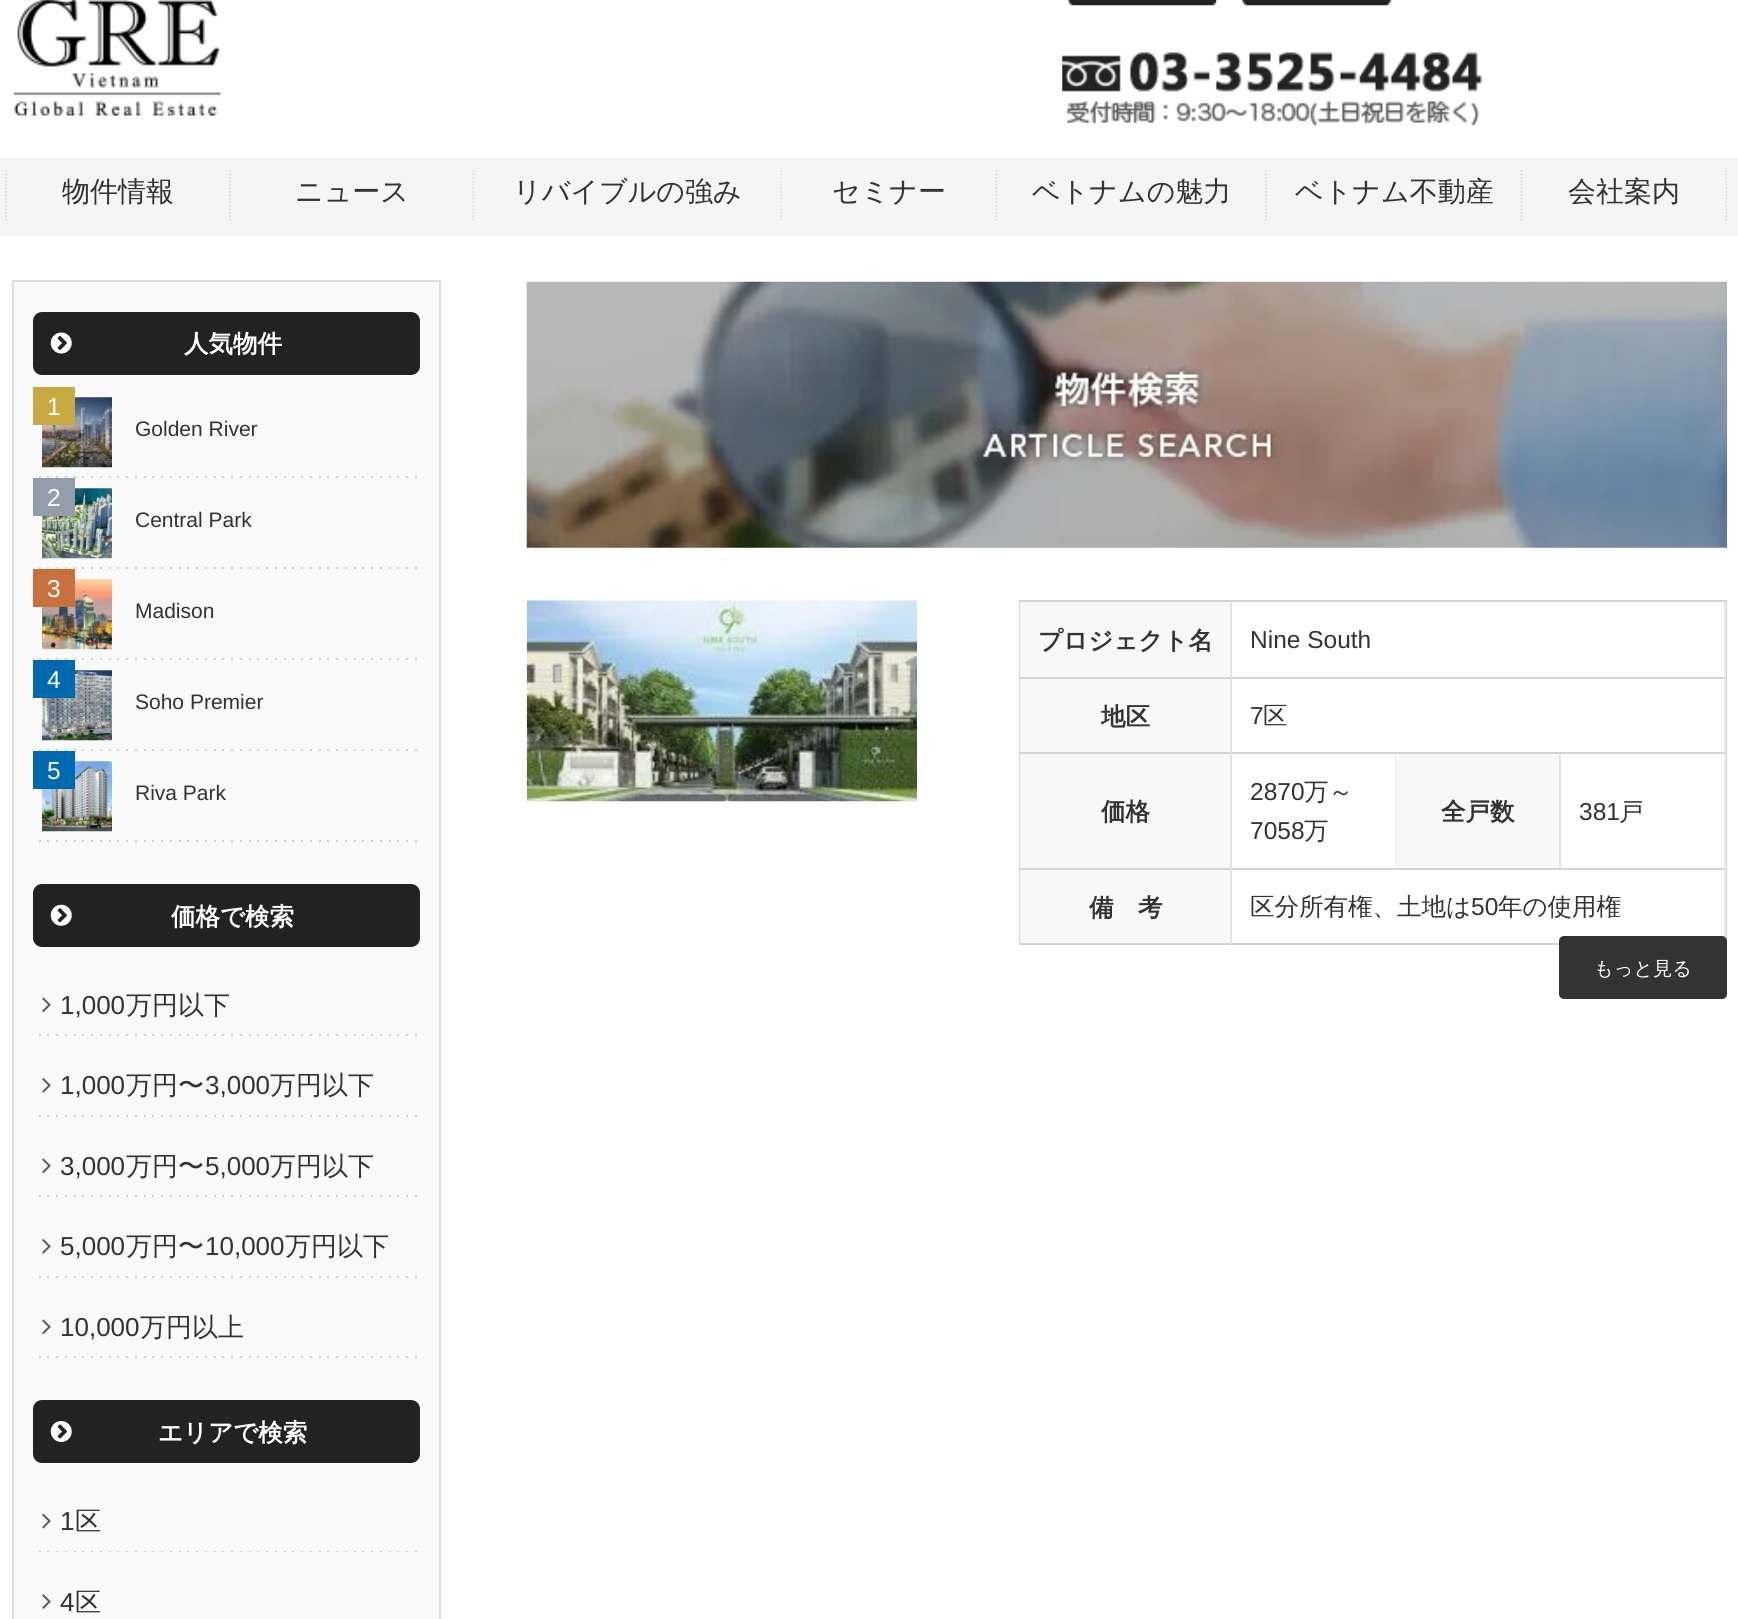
import math
import cairocffi as cairo

surface = cairo.ImageSurface(cairo.FORMAT_RGB24, 1738, 1619)
ctx = cairo.Context(surface)
options = cairo.FontOptions()
options.set_hint_metrics(cairo.HINT_METRICS_OFF)
options.set_hint_style(cairo.HINT_STYLE_NONE)
ctx.set_font_options(options)
ctx.set_miter_limit(4)


def rgb(r, g, b):
    ctx.set_source_rgb(r / 255, g / 255, b / 255)


def face(family, size, italic, bold):
    ctx.select_font_face(family, cairo.FONT_SLANT_ITALIC if italic else cairo.FONT_SLANT_NORMAL, cairo.FONT_WEIGHT_BOLD if bold else cairo.FONT_WEIGHT_NORMAL)
    ctx.set_font_size(size)


def label(x, y, s):
    ctx.move_to(x, y)
    ctx.show_text(s)


def rect(x, y, w, h):
    ctx.rectangle(x, y, w, h)
    ctx.fill()


def rrect(x, y, w, h, r):
    ctx.new_sub_path()
    for i, (u, v) in enumerate([(x + w - r, y + h - r), (x + r, y + h - r), (x + r, y + r), (x + w - r, y + r)]):
        ctx.arc(u, v, r, i * math.pi / 2, (i + 1) * math.pi / 2)
    ctx.close_path()


def image(path, x, y, w, h):
    ctx.save()
    ctx.set_source_surface(cairo.ImageSurface.create_from_png(path), x, y)
    ctx.rectangle(x, y, w, h)
    ctx.fill()
    ctx.restore()


rgb(255, 255, 255)
ctx.paint()
image('image0.png', 13, 0, 208, 116)
image('image1.png', 1067, 0, 150, 6)
image('image2.png', 1242, 0, 150, 6)
image('image3.png', 1062, 52, 421, 74)
rgb(245, 245, 245)
rect(0, 158, 1738, 78)
ctx.new_path()
ctx.move_to(230, 170)
ctx.line_to(230, 222)
rgb(220, 220, 220)
ctx.set_line_width(1.8)
ctx.set_dash([1.75, 1.75])
ctx.stroke()
ctx.new_path()
ctx.move_to(6, 170)
ctx.line_to(6, 222)
ctx.stroke()
face('WenQuanYi Zen Hei Medium', 28, 0, 0)
rgb(51, 51, 51)
label(62, 201, '物件情報')
ctx.save()
ctx.rectangle(231, 158, 243, 64)
ctx.clip()
ctx.new_path()
ctx.move_to(473.5, 170)
ctx.line_to(473.5, 222)
rgb(220, 220, 220)
ctx.stroke()
ctx.restore()
label(295, 201, 'ニュース')
ctx.save()
ctx.rectangle(474, 158, 308, 64)
ctx.clip()
ctx.new_path()
ctx.move_to(781.5, 170)
ctx.line_to(781.5, 222)
rgb(220, 220, 220)
ctx.stroke()
ctx.restore()
label(513, 201, 'リバイブルの強み')
ctx.new_path()
ctx.move_to(996.5, 170)
ctx.line_to(996.5, 222)
rgb(220, 220, 220)
ctx.stroke()
rgb(51, 51, 51)
label(832, 201, 'セミナー')
ctx.new_path()
ctx.move_to(1266, 170)
ctx.line_to(1266, 222)
rgb(220, 220, 220)
ctx.stroke()
rgb(51, 51, 51)
label(1032, 201, 'ベトナムの魅力')
ctx.new_path()
ctx.move_to(1521.5, 170)
ctx.line_to(1521.5, 222)
rgb(220, 220, 220)
ctx.stroke()
rgb(51, 51, 51)
label(1295, 201, 'ベトナム不動産')
ctx.save()
ctx.rectangle(1523, 158, 204, 64)
ctx.clip()
ctx.new_path()
ctx.move_to(1726.5, 170)
ctx.line_to(1726.5, 222)
rgb(220, 220, 220)
ctx.stroke()
ctx.restore()
label(1568, 201, '会社案内')
rgb(249, 249, 249)
ctx.rectangle(13, 281, 427, 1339)
ctx.fill_preserve()
rgb(220, 220, 220)
ctx.set_line_width(2)
ctx.set_dash([])
ctx.stroke()
rgb(34, 34, 34)
rrect(33, 312, 387, 63, 9)
ctx.fill()
image('image4.png', 50, 332, 22, 22)
face('WenQuanYi Zen Hei', 24.5, 0, 1)
rgb(255, 255, 255)
label(184, 352, '人気物件')
image('image5.png', 39, 476, 378, 2)
image('image6.png', 42, 397, 70, 71)
rgb(199, 171, 66)
rect(33, 387, 42, 38)
face('Liberation Sans', 24.5, 0, 0)
rgb(255, 255, 255)
label(47, 415, '1')
face('Liberation Sans', 21, 0, 0)
rgb(51, 51, 51)
label(135, 436, 'Golden River')
image('image5.png', 39, 567, 378, 2)
image('image7.png', 42, 488, 70, 71)
rgb(148, 157, 171)
rect(33, 478, 42, 38)
face('Liberation Sans', 24.5, 0, 0)
rgb(255, 255, 255)
label(47, 506, '2')
face('Liberation Sans', 21, 0, 0)
rgb(51, 51, 51)
label(135, 527, 'Central Park')
image('image5.png', 39, 658, 378, 2)
image('image8.png', 42, 579, 70, 71)
rgb(199, 114, 61)
rect(33, 569, 42, 38)
face('Liberation Sans', 24.5, 0, 0)
rgb(255, 255, 255)
label(47, 597, '3')
face('Liberation Sans', 21, 0, 0)
rgb(51, 51, 51)
label(135, 618, 'Madison')
image('image5.png', 39, 749, 378, 2)
image('image9.png', 42, 670, 70, 71)
rgb(1, 105, 175)
rect(33, 660, 42, 38)
face('Liberation Sans', 24.5, 0, 0)
rgb(255, 255, 255)
label(47, 688, '4')
face('Liberation Sans', 21, 0, 0)
rgb(51, 51, 51)
label(135, 709, 'Soho Premier')
image('image5.png', 39, 840, 378, 2)
image('image10.png', 42, 761, 70, 71)
rgb(1, 105, 175)
rect(33, 751, 42, 38)
face('Liberation Sans', 24.5, 0, 0)
rgb(255, 255, 255)
label(47, 779, '5')
face('Liberation Sans', 21, 0, 0)
rgb(51, 51, 51)
label(135, 800, 'Riva Park')
rgb(34, 34, 34)
rrect(33, 884, 387, 63, 9)
ctx.fill()
image('image11.png', 50, 904, 22, 22)
face('WenQuanYi Zen Hei', 24.5, 0, 1)
rgb(255, 255, 255)
label(171, 925, '価格で検索')
image('image5.png', 39, 1034, 378, 2)
image('image12.png', 42, 997, 9, 16)
face('Liberation Sans', 26, 0, 0)
rgb(51, 51, 51)
label(60, 1014, '1,000')
face('WenQuanYi Zen Hei Medium', 26, 0, 0)
label(126, 1014, '万円以下')
image('image5.png', 39, 1115, 378, 2)
image('image13.png', 42, 1078, 9, 15)
face('Liberation Sans', 26, 0, 0)
label(60, 1094, '1,000')
face('WenQuanYi Zen Hei Medium', 26, 0, 0)
label(126, 1094, '万円〜')
face('Liberation Sans', 26, 0, 0)
label(205, 1094, '3,000')
face('WenQuanYi Zen Hei Medium', 26, 0, 0)
label(270, 1094, '万円以下')
image('image5.png', 39, 1195, 378, 2)
image('image12.png', 42, 1158, 9, 16)
face('Liberation Sans', 26, 0, 0)
label(60, 1175, '3,000')
face('WenQuanYi Zen Hei Medium', 26, 0, 0)
label(126, 1175, '万円〜')
face('Liberation Sans', 26, 0, 0)
label(205, 1175, '5,000')
face('WenQuanYi Zen Hei Medium', 26, 0, 0)
label(270, 1175, '万円以下')
image('image5.png', 39, 1276, 378, 2)
image('image13.png', 42, 1239, 9, 15)
face('Liberation Sans', 26, 0, 0)
label(60, 1255, '5,000')
face('WenQuanYi Zen Hei Medium', 26, 0, 0)
label(126, 1255, '万円〜')
face('Liberation Sans', 26, 0, 0)
label(205, 1255, '10,000')
face('WenQuanYi Zen Hei Medium', 26, 0, 0)
label(285, 1255, '万円以下')
image('image5.png', 39, 1356, 378, 2)
image('image12.png', 42, 1319, 9, 16)
face('Liberation Sans', 26, 0, 0)
label(60, 1336, '10,000')
face('WenQuanYi Zen Hei Medium', 26, 0, 0)
label(140, 1336, '万円以上')
rgb(34, 34, 34)
rrect(33, 1400, 387, 63, 9)
ctx.fill()
image('image14.png', 50, 1421, 22, 21)
face('WenQuanYi Zen Hei', 24.5, 0, 1)
rgb(255, 255, 255)
label(158, 1441, 'エリアで検索')
image('image15.png', 39, 1551, 378, 1)
image('image16.png', 42, 1513, 9, 16)
face('Liberation Sans', 26, 0, 0)
rgb(51, 51, 51)
label(60, 1530, '1')
face('WenQuanYi Zen Hei Medium', 26, 0, 0)
label(75, 1530, '区')
image('image17.png', 42, 1594, 9, 15)
face('Liberation Sans', 26, 0, 0)
label(60, 1611, '4')
face('WenQuanYi Zen Hei Medium', 26, 0, 0)
label(75, 1611, '区')
image('image18.png', 526, 281, 1202, 267)
image('image19.png', 526, 600, 391, 202)
rgb(212, 212, 212)
rect(1019, 600, 708, 2)
rect(1726, 600, 1, 345)
rect(1019, 600, 2, 345)
rgb(248, 248, 248)
rect(1020, 602, 212, 343)
rgb(228, 228, 228)
ctx.new_path()
ctx.move_to(1232, 602)
ctx.line_to(1232, 679)
ctx.line_to(1230, 677)
ctx.line_to(1230, 602)
ctx.close_path()
ctx.fill()
rgb(212, 212, 212)
ctx.new_path()
ctx.move_to(1232, 679)
ctx.line_to(1020, 679)
ctx.line_to(1020, 677)
ctx.line_to(1230, 677)
ctx.close_path()
ctx.fill()
face('WenQuanYi Zen Hei', 24.5, 0, 1)
rgb(51, 51, 51)
label(1038, 649, 'プロジェクト名')
rgb(235, 235, 235)
ctx.new_path()
ctx.move_to(1726, 602)
ctx.line_to(1726, 679)
ctx.line_to(1724, 677)
ctx.line_to(1724, 602)
ctx.close_path()
ctx.fill()
rgb(212, 212, 212)
ctx.new_path()
ctx.move_to(1726, 679)
ctx.line_to(1232, 679)
ctx.line_to(1232, 677)
ctx.line_to(1724, 677)
ctx.close_path()
ctx.fill()
face('Liberation Sans', 24.5, 0, 0)
rgb(51, 51, 51)
label(1250, 648, 'Nine South')
rgb(228, 228, 228)
ctx.new_path()
ctx.move_to(1232, 679)
ctx.line_to(1232, 754)
ctx.line_to(1230, 752)
ctx.line_to(1230, 679)
ctx.close_path()
ctx.fill()
rgb(212, 212, 212)
ctx.new_path()
ctx.move_to(1232, 754)
ctx.line_to(1020, 754)
ctx.line_to(1020, 752)
ctx.line_to(1230, 752)
ctx.close_path()
ctx.fill()
face('WenQuanYi Zen Hei', 24.5, 0, 1)
rgb(51, 51, 51)
label(1101, 725, '地区')
rgb(235, 235, 235)
ctx.new_path()
ctx.move_to(1726, 679)
ctx.line_to(1726, 754)
ctx.line_to(1724, 752)
ctx.line_to(1724, 679)
ctx.close_path()
ctx.fill()
rgb(212, 212, 212)
ctx.new_path()
ctx.move_to(1726, 754)
ctx.line_to(1232, 754)
ctx.line_to(1232, 752)
ctx.line_to(1724, 752)
ctx.close_path()
ctx.fill()
face('Liberation Sans', 24.5, 0, 0)
rgb(51, 51, 51)
label(1250, 724, '7')
face('WenQuanYi Zen Hei Medium', 24.5, 0, 0)
label(1263, 724, '区')
rgb(228, 228, 228)
ctx.new_path()
ctx.move_to(1232, 754)
ctx.line_to(1232, 870)
ctx.line_to(1230, 868)
ctx.line_to(1230, 754)
ctx.close_path()
ctx.fill()
rgb(212, 212, 212)
ctx.new_path()
ctx.move_to(1232, 870)
ctx.line_to(1020, 870)
ctx.line_to(1020, 868)
ctx.line_to(1230, 868)
ctx.close_path()
ctx.fill()
face('WenQuanYi Zen Hei', 24.5, 0, 1)
rgb(51, 51, 51)
label(1101, 820, '価格')
rgb(235, 235, 235)
ctx.new_path()
ctx.move_to(1396, 754)
ctx.line_to(1396, 870)
ctx.line_to(1395, 868)
ctx.line_to(1395, 754)
ctx.close_path()
ctx.fill()
rgb(212, 212, 212)
ctx.new_path()
ctx.move_to(1396, 870)
ctx.line_to(1232, 870)
ctx.line_to(1232, 868)
ctx.line_to(1395, 868)
ctx.close_path()
ctx.fill()
face('Liberation Sans', 24.5, 0, 0)
rgb(51, 51, 51)
label(1250, 800, '2870')
face('WenQuanYi Zen Hei Medium', 24.5, 0, 0)
label(1304, 800, '万～')
face('Liberation Sans', 24.5, 0, 0)
label(1250, 839, '7058')
face('WenQuanYi Zen Hei Medium', 24.5, 0, 0)
label(1304, 839, '万')
rgb(248, 248, 248)
rect(1397, 754, 164, 116)
rgb(228, 228, 228)
ctx.new_path()
ctx.move_to(1561, 754)
ctx.line_to(1561, 870)
ctx.line_to(1559, 868)
ctx.line_to(1559, 754)
ctx.close_path()
ctx.fill()
rgb(212, 212, 212)
ctx.new_path()
ctx.move_to(1561, 870)
ctx.line_to(1396, 870)
ctx.line_to(1396, 868)
ctx.line_to(1559, 868)
ctx.close_path()
ctx.fill()
face('WenQuanYi Zen Hei', 24.5, 0, 1)
rgb(51, 51, 51)
label(1441, 820, '全戸数')
rgb(235, 235, 235)
ctx.new_path()
ctx.move_to(1726, 754)
ctx.line_to(1726, 870)
ctx.line_to(1724, 868)
ctx.line_to(1724, 754)
ctx.close_path()
ctx.fill()
rgb(212, 212, 212)
ctx.new_path()
ctx.move_to(1726, 870)
ctx.line_to(1561, 870)
ctx.line_to(1561, 868)
ctx.line_to(1724, 868)
ctx.close_path()
ctx.fill()
face('Liberation Sans', 24.5, 0, 0)
rgb(51, 51, 51)
label(1579, 820, '381')
face('WenQuanYi Zen Hei Medium', 24.5, 0, 0)
label(1619, 820, '戸')
rgb(228, 228, 228)
ctx.new_path()
ctx.move_to(1232, 870)
ctx.line_to(1232, 945)
ctx.line_to(1230, 943)
ctx.line_to(1230, 870)
ctx.close_path()
ctx.fill()
rgb(212, 212, 212)
ctx.new_path()
ctx.move_to(1232, 945)
ctx.line_to(1020, 945)
ctx.line_to(1020, 943)
ctx.line_to(1230, 943)
ctx.close_path()
ctx.fill()
face('WenQuanYi Zen Hei', 24.5, 0, 1)
rgb(51, 51, 51)
label(1089, 916, '備　考')
rgb(235, 235, 235)
ctx.new_path()
ctx.move_to(1726, 870)
ctx.line_to(1726, 945)
ctx.line_to(1724, 943)
ctx.line_to(1724, 870)
ctx.close_path()
ctx.fill()
rgb(212, 212, 212)
ctx.new_path()
ctx.move_to(1726, 945)
ctx.line_to(1232, 945)
ctx.line_to(1232, 943)
ctx.line_to(1724, 943)
ctx.close_path()
ctx.fill()
face('WenQuanYi Zen Hei Medium', 24.5, 0, 0)
rgb(51, 51, 51)
label(1250, 915, '区分所有権、土地は')
face('Liberation Sans', 24.5, 0, 0)
label(1471, 915, '50')
face('WenQuanYi Zen Hei Medium', 24.5, 0, 0)
label(1498, 915, '年の使用権')
rrect(1559, 936, 168, 63, 5)
ctx.fill()
face('WenQuanYi Zen Hei Medium', 19.25, 0, 0)
rgb(255, 255, 255)
label(1594, 975, 'もっと見る')
surface.write_to_png('render.png')
